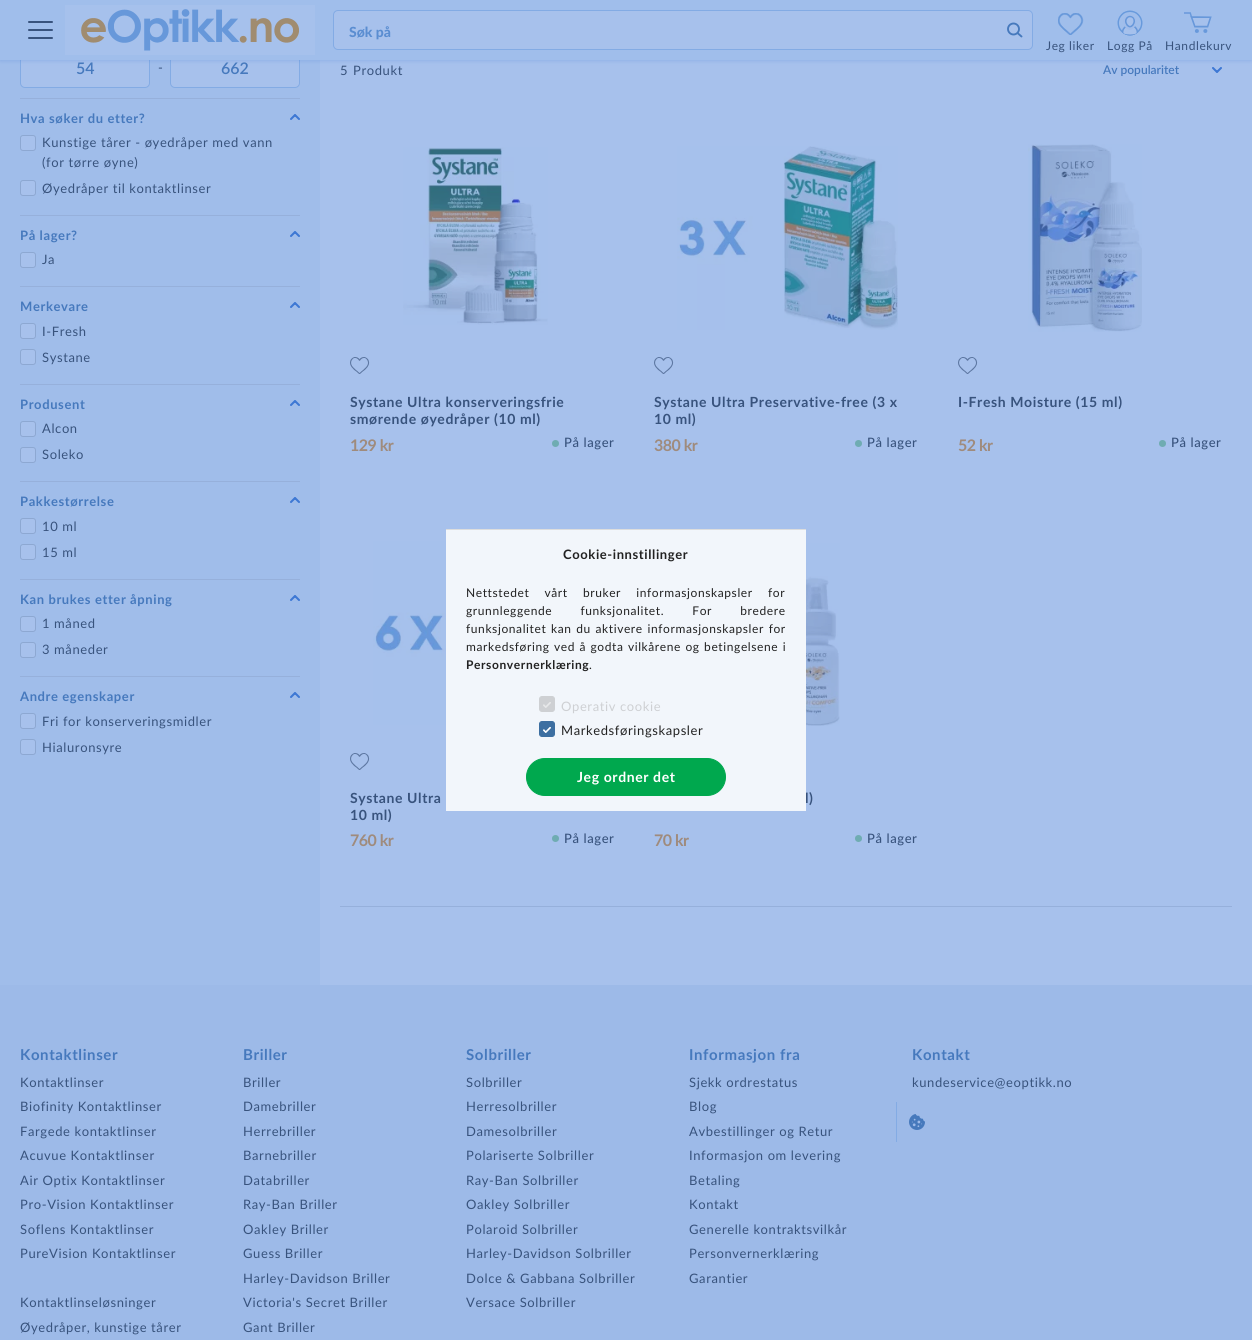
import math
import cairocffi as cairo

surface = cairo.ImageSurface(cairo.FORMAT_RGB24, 1252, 1340)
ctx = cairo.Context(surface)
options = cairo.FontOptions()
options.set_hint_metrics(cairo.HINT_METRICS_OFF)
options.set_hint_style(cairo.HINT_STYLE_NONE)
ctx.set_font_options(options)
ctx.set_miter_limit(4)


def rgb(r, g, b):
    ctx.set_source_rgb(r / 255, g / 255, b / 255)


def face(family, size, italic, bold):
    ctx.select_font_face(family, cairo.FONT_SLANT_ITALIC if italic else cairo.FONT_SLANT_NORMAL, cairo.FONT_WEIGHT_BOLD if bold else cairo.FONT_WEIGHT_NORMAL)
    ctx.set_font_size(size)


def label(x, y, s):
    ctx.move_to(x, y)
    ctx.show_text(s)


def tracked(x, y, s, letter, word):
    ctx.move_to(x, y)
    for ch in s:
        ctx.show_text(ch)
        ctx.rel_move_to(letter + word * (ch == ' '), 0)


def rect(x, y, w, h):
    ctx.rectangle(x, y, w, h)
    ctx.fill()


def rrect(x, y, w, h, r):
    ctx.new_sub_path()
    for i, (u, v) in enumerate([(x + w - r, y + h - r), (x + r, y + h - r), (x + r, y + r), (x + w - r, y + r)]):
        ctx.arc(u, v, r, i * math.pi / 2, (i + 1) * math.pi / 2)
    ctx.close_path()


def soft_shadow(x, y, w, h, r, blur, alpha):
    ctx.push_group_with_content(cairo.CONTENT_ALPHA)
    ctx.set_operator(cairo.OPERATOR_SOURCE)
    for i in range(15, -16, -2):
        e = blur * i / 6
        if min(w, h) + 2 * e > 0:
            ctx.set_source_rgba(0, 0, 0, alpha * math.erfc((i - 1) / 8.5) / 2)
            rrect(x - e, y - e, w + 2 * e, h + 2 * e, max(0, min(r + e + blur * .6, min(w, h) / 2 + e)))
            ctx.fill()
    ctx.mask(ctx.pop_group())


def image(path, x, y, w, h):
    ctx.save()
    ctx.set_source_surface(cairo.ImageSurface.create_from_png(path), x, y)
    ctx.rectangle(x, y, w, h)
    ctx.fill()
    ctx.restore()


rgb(167, 193, 236)
ctx.paint()
rgb(160, 189, 234)
rect(0, 60, 320, 925)
rgb(167, 193, 236)
rrect(20.5, 48.5, 129, 39, 4.5)
ctx.fill_preserve()
rgb(131, 171, 228)
ctx.set_line_width(1)
ctx.stroke()
rgb(167, 193, 236)
rrect(170.5, 48.5, 129, 39, 4.5)
ctx.fill_preserve()
rgb(131, 171, 228)
ctx.stroke()
image('image5.png', 1212, 67, 10, 6)
rgb(78, 131, 216)
soft_shadow(0, 0, 1252, 60, 0, 2.5, 0.4)
rgb(160, 190, 235)
rect(0, 0, 1252, 60)
rgb(56, 83, 125)
rrect(28, 21, 25, 2, 1)
ctx.fill()
rrect(28, 29, 25, 2, 1)
ctx.fill()
rrect(28, 37, 25, 2, 1)
ctx.fill()
image('image0.png', 65, 5, 250, 50)
rgb(167, 193, 236)
rrect(333.5, 10.5, 699, 39, 4.5)
ctx.fill_preserve()
rgb(131, 171, 228)
ctx.stroke()
face('Lato Black', 14, 0, 0)
rgb(90, 141, 209)
label(349, 37, 'Søk på')
ctx.new_path()
ctx.move_to(1017.5, 33)
ctx.line_to(1021.5, 36.5)
rgb(70, 121, 189)
ctx.set_line_width(1.9)
ctx.set_line_cap(cairo.LINE_CAP_ROUND)
ctx.set_line_join(cairo.LINE_JOIN_ROUND)
ctx.stroke()
rgb(167, 193, 236)
ctx.arc(1013.5, 29, 5.5, 0, 2 * math.pi)
ctx.fill_preserve()
rgb(70, 121, 189)
ctx.set_line_cap(cairo.LINE_CAP_BUTT)
ctx.set_line_join(cairo.LINE_JOIN_MITER)
ctx.stroke()
image('image1.png', 1058, 13, 26, 22)
face('Lato', 12, 0, 0)
rgb(56, 83, 125)
tracked(1046, 50, 'Jeg liker', 0.6, 0)
image('image2.png', 1117, 10, 26, 26)
tracked(1107, 50, 'Logg På', 0.6, 0)
image('image3.png', 1184, 12, 28, 21)
tracked(1165, 50, 'Handlekurv', 0.6, 0)
face('Lato SemiBold', 16, 0, 0)
rgb(70, 121, 189)
label(76, 74, '54')
face('Lato', 13, 0, 0)
rgb(56, 83, 125)
tracked(158, 72, '-', 0.6, 0)
face('Lato SemiBold', 16, 0, 0)
rgb(70, 121, 189)
label(221, 74, '662')
rgb(150, 176, 219)
rect(20, 98, 280, 1)
face('Lato', 13, 0, 1)
rgb(70, 121, 189)
tracked(20, 123, 'Hva søker du etter?', 0.6, 0)
image('image4.png', 290, 114, 10, 6)
rgb(167, 193, 236)
rrect(20.5, 135.5, 15, 15, 2.5)
ctx.fill_preserve()
rgb(141, 168, 210)
ctx.set_line_width(1)
ctx.stroke()
face('Lato', 13, 0, 0)
rgb(56, 83, 125)
tracked(42, 147, 'Kunstige tårer - øyedråper med vann', 0.6, 0)
tracked(42, 167, '(for tørre øyne)', 0.6, 0)
rgb(167, 193, 236)
rrect(20.5, 180.5, 15, 15, 2.5)
ctx.fill_preserve()
rgb(141, 168, 210)
ctx.stroke()
rgb(56, 83, 125)
tracked(42, 193, 'Øyedråper til kontaktlinser', 0.6, 0)
rgb(150, 176, 219)
rect(20, 215, 280, 1)
face('Lato', 13, 0, 1)
rgb(70, 121, 189)
tracked(20, 240, 'På lager?', 0.6, 0)
image('image4.png', 290, 231, 10, 6)
rgb(167, 193, 236)
rrect(20.5, 252.5, 15, 15, 2.5)
ctx.fill_preserve()
rgb(141, 168, 210)
ctx.stroke()
face('Lato', 13, 0, 0)
rgb(56, 83, 125)
tracked(42, 264, 'Ja', 0.6, 0)
rgb(150, 176, 219)
rect(20, 286, 280, 1)
face('Lato', 13, 0, 1)
rgb(70, 121, 189)
tracked(20, 311, 'Merkevare', 0.6, 0)
image('image4.png', 290, 302, 10, 6)
rgb(167, 193, 236)
rrect(20.5, 323.5, 15, 15, 2.5)
ctx.fill_preserve()
rgb(141, 168, 210)
ctx.stroke()
face('Lato', 13, 0, 0)
rgb(56, 83, 125)
tracked(42, 336, 'I-Fresh', 0.6, 0)
rgb(167, 193, 236)
rrect(20.5, 349.5, 15, 15, 2.5)
ctx.fill_preserve()
rgb(141, 168, 210)
ctx.stroke()
rgb(56, 83, 125)
tracked(42, 362, 'Systane', 0.6, 0)
rgb(150, 176, 219)
rect(20, 384, 280, 1)
face('Lato', 13, 0, 1)
rgb(70, 121, 189)
tracked(20, 409, 'Produsent', 0.6, 0)
image('image4.png', 290, 400, 10, 6)
rgb(167, 193, 236)
rrect(20.5, 421.5, 15, 15, 2.5)
ctx.fill_preserve()
rgb(141, 168, 210)
ctx.stroke()
face('Lato', 13, 0, 0)
rgb(56, 83, 125)
tracked(42, 433, 'Alcon', 0.6, 0)
rgb(167, 193, 236)
rrect(20.5, 447.5, 15, 15, 2.5)
ctx.fill_preserve()
rgb(141, 168, 210)
ctx.stroke()
rgb(56, 83, 125)
tracked(42, 459, 'Soleko', 0.6, 0)
rgb(150, 176, 219)
rect(20, 481, 280, 1)
face('Lato', 13, 0, 1)
rgb(70, 121, 189)
tracked(20, 506, 'Pakkestørrelse', 0.6, 0)
image('image4.png', 290, 497, 10, 6)
rgb(167, 193, 236)
rrect(20.5, 518.5, 15, 15, 2.5)
ctx.fill_preserve()
rgb(141, 168, 210)
ctx.stroke()
face('Lato', 13, 0, 0)
rgb(56, 83, 125)
tracked(42, 531, '10 ml', 0.6, 0)
rgb(167, 193, 236)
rrect(20.5, 544.5, 15, 15, 2.5)
ctx.fill_preserve()
rgb(141, 168, 210)
ctx.stroke()
rgb(56, 83, 125)
tracked(42, 557, '15 ml', 0.6, 0)
rgb(150, 176, 219)
rect(20, 579, 280, 1)
face('Lato', 13, 0, 1)
rgb(70, 121, 189)
tracked(20, 604, 'Kan brukes etter åpning', 0.6, 0)
image('image4.png', 290, 595, 10, 6)
rgb(167, 193, 236)
rrect(20.5, 616.5, 15, 15, 2.5)
ctx.fill_preserve()
rgb(141, 168, 210)
ctx.stroke()
face('Lato', 13, 0, 0)
rgb(56, 83, 125)
tracked(42, 628, '1 måned', 0.6, 0)
rgb(167, 193, 236)
rrect(20.5, 642.5, 15, 15, 2.5)
ctx.fill_preserve()
rgb(141, 168, 210)
ctx.stroke()
rgb(56, 83, 125)
tracked(42, 654, '3 måneder', 0.6, 0)
rgb(150, 176, 219)
rect(20, 676, 280, 1)
face('Lato', 13, 0, 1)
rgb(70, 121, 189)
tracked(20, 701, 'Andre egenskaper', 0.6, 0)
image('image4.png', 290, 692, 10, 6)
rgb(167, 193, 236)
rrect(20.5, 713.5, 15, 15, 2.5)
ctx.fill_preserve()
rgb(141, 168, 210)
ctx.stroke()
face('Lato', 13, 0, 0)
rgb(56, 83, 125)
tracked(42, 726, 'Fri for konserveringsmidler', 0.6, 0)
rgb(167, 193, 236)
rrect(20.5, 739.5, 15, 15, 2.5)
ctx.fill_preserve()
rgb(141, 168, 210)
ctx.stroke()
rgb(56, 83, 125)
tracked(42, 752, 'Hialuronsyre', 0.6, 0)
tracked(340, 75, '5', 0.6, 0)
tracked(353, 75, 'Produkt', 0.6, 0)
face('Lato SemiBold', 12, 0, 0)
rgb(70, 121, 189)
label(1103, 74, 'Av popularitet')
image('image6.png', 403, 147, 145, 178)
image('image7.png', 350, 357, 20, 17)
face('Lato', 14, 0, 1)
rgb(56, 83, 125)
tracked(350, 407, 'Systane Ultra konserveringsfrie', 0.6, 0)
tracked(350, 424, 'smørende øyedråper (10 ml)', 0.6, 0)
face('Lato', 16, 0, 1)
rgb(159, 139, 125)
tracked(350, 451, '129 kr', -0.5, 0)
rgb(111, 172, 178)
ctx.new_path()
ctx.arc(555.5, 443.5, 3.5, 0, 2 * math.pi)
ctx.fill()
face('Lato Medium', 13, 0, 0)
rgb(56, 83, 125)
tracked(564, 447, 'På lager', 0.6, 0)
image('image8.png', 677, 146, 221, 184)
image('image7.png', 654, 357, 20, 17)
face('Lato', 14, 0, 1)
tracked(654, 407, 'Systane Ultra Preservative-free (3 x', 0.6, 0)
tracked(654, 424, '10 ml)', 0.6, 0)
face('Lato', 16, 0, 1)
rgb(159, 139, 125)
tracked(654, 451, '380 kr', -0.5, 0)
rgb(111, 172, 178)
ctx.new_path()
ctx.arc(858.5, 443.5, 3.5, 0, 2 * math.pi)
ctx.fill()
face('Lato Medium', 13, 0, 0)
rgb(56, 83, 125)
tracked(867, 447, 'På lager', 0.6, 0)
image('image9.png', 1028, 144, 114, 188)
image('image7.png', 958, 357, 20, 17)
face('Lato', 14, 0, 1)
tracked(958, 407, 'I-Fresh Moisture (15 ml)', 0.6, 0)
face('Lato', 16, 0, 1)
rgb(159, 139, 125)
tracked(958, 451, '52 kr', -0.5, 0)
rgb(111, 172, 178)
ctx.new_path()
ctx.arc(1162.5, 443.5, 3.5, 0, 2 * math.pi)
ctx.fill()
face('Lato Medium', 13, 0, 0)
rgb(56, 83, 125)
tracked(1171, 447, 'På lager', 0.6, 0)
image('image10.png', 373, 541, 73, 184)
image('image11.png', 350, 753, 20, 17)
face('Lato', 14, 0, 1)
tracked(350, 803, 'Systane Ultra', 0.6, 0)
tracked(350, 820, '10 ml)', 0.6, 0)
face('Lato', 16, 0, 1)
rgb(159, 139, 125)
tracked(350, 846, '760 kr', -0.5, 0)
rgb(111, 172, 178)
ctx.new_path()
ctx.arc(555.5, 838.5, 3.5, 0, 2 * math.pi)
ctx.fill()
face('Lato Medium', 13, 0, 0)
rgb(56, 83, 125)
tracked(564, 843, 'På lager', 0.6, 0)
image('image12.png', 806, 543, 34, 183)
face('Lato', 14, 0, 1)
tracked(805, 803, 'l)', 0.6, 0)
face('Lato', 16, 0, 1)
rgb(159, 139, 125)
tracked(654, 846, '70 kr', -0.5, 0)
rgb(111, 172, 178)
ctx.new_path()
ctx.arc(858.5, 838.5, 3.5, 0, 2 * math.pi)
ctx.fill()
face('Lato Medium', 13, 0, 0)
rgb(56, 83, 125)
tracked(867, 843, 'På lager', 0.6, 0)
rgb(150, 176, 219)
rect(340, 906, 892, 1)
rgb(157, 186, 232)
rect(0, 985, 1252, 355)
face('Lato', 15, 0, 1)
rgb(70, 121, 189)
tracked(20, 1060, 'Kontaktlinser', 0.6, 0)
face('Lato', 13, 0, 0)
rgb(56, 83, 125)
tracked(20, 1087, 'Kontaktlinser', 0.6, 0)
tracked(20, 1111, 'Biofinity Kontaktlinser', 0.6, 0)
tracked(20, 1136, 'Fargede kontaktlinser', 0.6, 0)
tracked(20, 1160, 'Acuvue Kontaktlinser', 0.6, 0)
tracked(20, 1185, 'Air Optix Kontaktlinser', 0.6, 0)
tracked(20, 1209, 'Pro-Vision Kontaktlinser', 0.6, 0)
tracked(20, 1234, 'Soflens Kontaktlinser', 0.6, 0)
tracked(20, 1258, 'PureVision Kontaktlinser', 0.6, 0)
tracked(20, 1307, 'Kontaktlinseløsninger', 0.6, 0)
tracked(20, 1332, 'Øyedråper, kunstige tårer', 0.6, 0)
face('Lato', 15, 0, 1)
rgb(70, 121, 189)
tracked(243, 1060, 'Briller', 0.6, 0)
face('Lato', 13, 0, 0)
rgb(56, 83, 125)
tracked(243, 1087, 'Briller', 0.6, 0)
tracked(243, 1111, 'Damebriller', 0.6, 0)
tracked(243, 1136, 'Herrebriller', 0.6, 0)
tracked(243, 1160, 'Barnebriller', 0.6, 0)
tracked(243, 1185, 'Databriller', 0.6, 0)
tracked(243, 1209, 'Ray-Ban Briller', 0.6, 0)
tracked(243, 1234, 'Oakley Briller', 0.6, 0)
tracked(243, 1258, 'Guess Briller', 0.6, 0)
tracked(243, 1283, 'Harley-Davidson Briller', 0.6, 0)
tracked(243, 1307, 'Victoria\'s Secret Briller', 0.6, 0)
tracked(243, 1332, 'Gant Briller', 0.6, 0)
face('Lato', 15, 0, 1)
rgb(70, 121, 189)
tracked(466, 1060, 'Solbriller', 0.6, 0)
face('Lato', 13, 0, 0)
rgb(56, 83, 125)
tracked(466, 1087, 'Solbriller', 0.6, 0)
tracked(466, 1111, 'Herresolbriller', 0.6, 0)
tracked(466, 1136, 'Damesolbriller', 0.6, 0)
tracked(466, 1160, 'Polariserte Solbriller', 0.6, 0)
tracked(466, 1185, 'Ray-Ban Solbriller', 0.6, 0)
tracked(466, 1209, 'Oakley Solbriller', 0.6, 0)
tracked(466, 1234, 'Polaroid Solbriller', 0.6, 0)
tracked(466, 1258, 'Harley-Davidson Solbriller', 0.6, 0)
tracked(466, 1283, 'Dolce & Gabbana Solbriller', 0.6, 0)
tracked(466, 1307, 'Versace Solbriller', 0.6, 0)
face('Lato', 15, 0, 1)
rgb(70, 121, 189)
tracked(689, 1060, 'Informasjon fra', 0.6, 0)
face('Lato', 13, 0, 0)
rgb(56, 83, 125)
tracked(689, 1087, 'Sjekk ordrestatus', 0.6, 0)
tracked(689, 1111, 'Blog', 0.6, 0)
tracked(689, 1136, 'Avbestillinger og Retur', 0.6, 0)
tracked(689, 1160, 'Informasjon om levering', 0.6, 0)
tracked(689, 1185, 'Betaling', 0.6, 0)
tracked(689, 1209, 'Kontakt', 0.6, 0)
tracked(689, 1234, 'Generelle kontraktsvilkår', 0.6, 0)
tracked(689, 1258, 'Personvernerklæring', 0.6, 0)
tracked(689, 1283, 'Garantier', 0.6, 0)
face('Lato', 15, 0, 1)
rgb(70, 121, 189)
tracked(912, 1060, 'Kontakt', 0.6, 0)
face('Lato', 13, 0, 0)
rgb(56, 83, 125)
tracked(912, 1087, 'kundeservice@eoptikk.no', 0.6, 0)
rgb(131, 171, 228)
rect(896, 1102, 1, 40)
image('image13.png', 909, 1114, 16, 16)
rgb(242, 246, 251)
rect(446, 530, 360, 281)
rgb(221, 221, 221)
rect(446, 529, 360, 1)
face('Lato', 13, 0, 1)
rgb(34, 34, 34)
tracked(563, 559, 'Cookie-innstillinger', 0.6, 0)
face('Lato', 12, 0, 0)
tracked(466, 597, 'Nettstedet vårt bruker informasjonskapsler for', 0.6, 11.5)
tracked(466, 615, 'grunnleggende funksjonalitet. For bredere', 0.6, 24.5)
tracked(466, 633, 'funksjonalitet kan du aktivere informasjonskapsler for', 0.6, 1)
tracked(466, 651, 'markedsføring ved å godta vilkårene og betingelsene i', 0.6, 0.75)
face('Lato', 12, 0, 1)
tracked(466, 669, 'Personvernerklæring', 0.6, 0)
face('Lato', 12, 0, 0)
tracked(589, 669, '.', 0.6, 0)
rgb(206, 208, 211)
rrect(539.5, 696.5, 15, 15, 2.5)
ctx.fill_preserve()
ctx.stroke()
image('image14.png', 543, 702, 8, 6)
face('Lato', 13, 0, 0)
tracked(561, 711, 'Operativ cookie', 0.6, 0)
rgb(61, 111, 161)
rrect(539.5, 721.5, 15, 15, 2.5)
ctx.fill_preserve()
ctx.stroke()
image('image15.png', 543, 727, 8, 6)
rgb(34, 34, 34)
tracked(561, 735, 'Markedsføringskapsler', 0.6, 0)
rgb(0, 168, 78)
rrect(526.5, 758.5, 199, 37, 18.5)
ctx.fill_preserve()
ctx.stroke()
face('Lato', 14, 0, 1)
rgb(255, 255, 255)
tracked(577, 782, 'Jeg ordner det', 0.6, 0)
surface.write_to_png('render.png')
